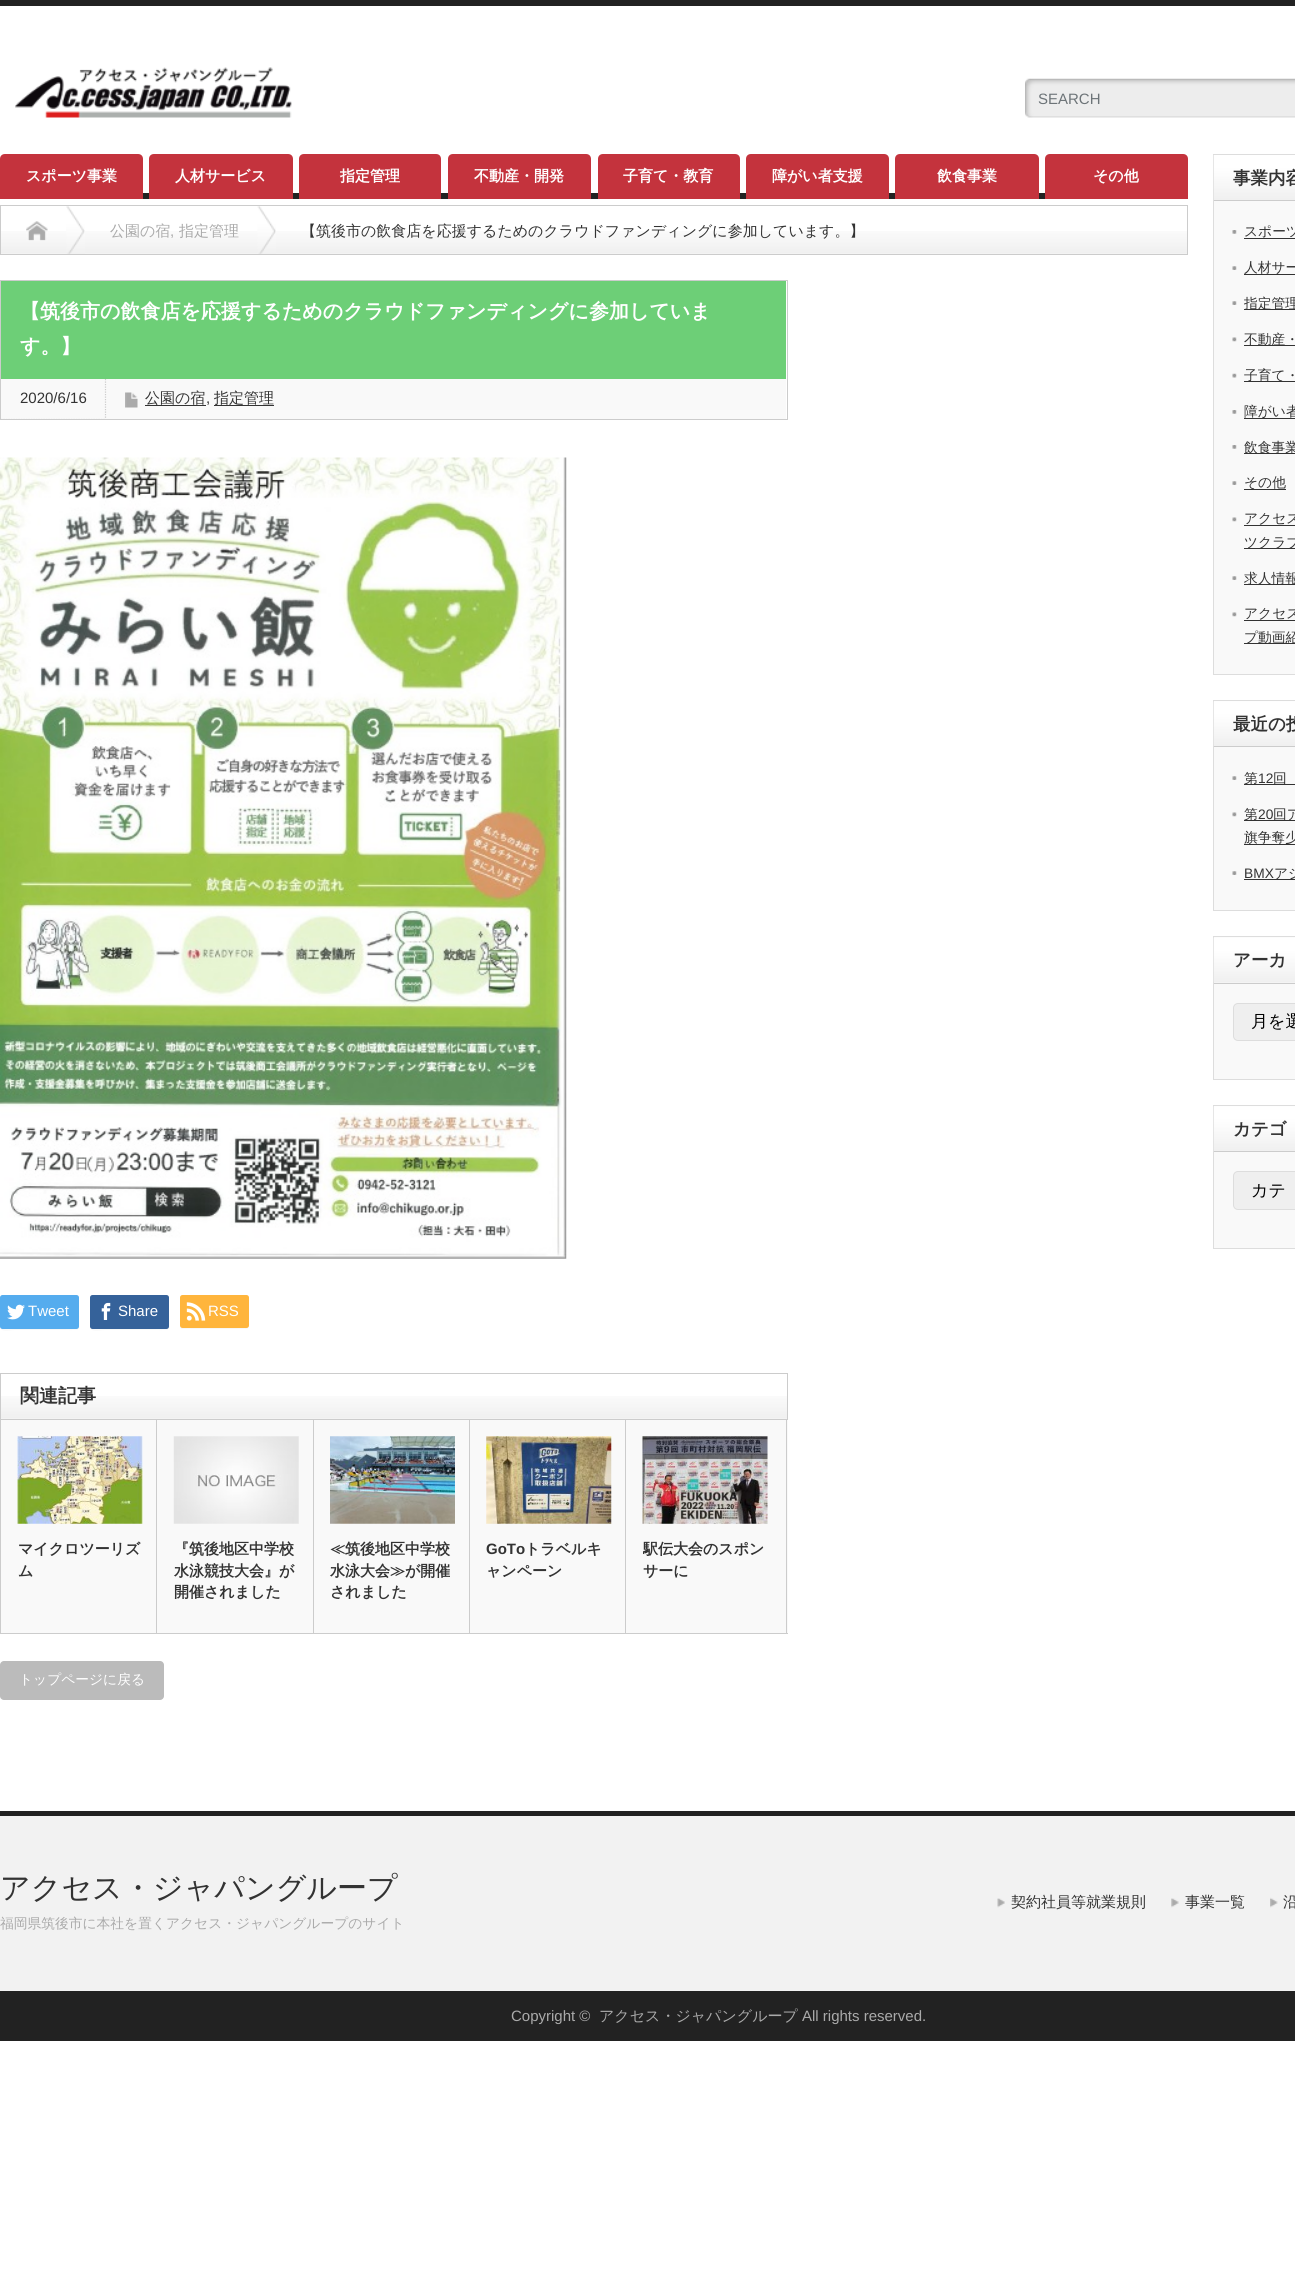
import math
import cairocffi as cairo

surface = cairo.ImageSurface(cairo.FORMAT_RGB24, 1295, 2272)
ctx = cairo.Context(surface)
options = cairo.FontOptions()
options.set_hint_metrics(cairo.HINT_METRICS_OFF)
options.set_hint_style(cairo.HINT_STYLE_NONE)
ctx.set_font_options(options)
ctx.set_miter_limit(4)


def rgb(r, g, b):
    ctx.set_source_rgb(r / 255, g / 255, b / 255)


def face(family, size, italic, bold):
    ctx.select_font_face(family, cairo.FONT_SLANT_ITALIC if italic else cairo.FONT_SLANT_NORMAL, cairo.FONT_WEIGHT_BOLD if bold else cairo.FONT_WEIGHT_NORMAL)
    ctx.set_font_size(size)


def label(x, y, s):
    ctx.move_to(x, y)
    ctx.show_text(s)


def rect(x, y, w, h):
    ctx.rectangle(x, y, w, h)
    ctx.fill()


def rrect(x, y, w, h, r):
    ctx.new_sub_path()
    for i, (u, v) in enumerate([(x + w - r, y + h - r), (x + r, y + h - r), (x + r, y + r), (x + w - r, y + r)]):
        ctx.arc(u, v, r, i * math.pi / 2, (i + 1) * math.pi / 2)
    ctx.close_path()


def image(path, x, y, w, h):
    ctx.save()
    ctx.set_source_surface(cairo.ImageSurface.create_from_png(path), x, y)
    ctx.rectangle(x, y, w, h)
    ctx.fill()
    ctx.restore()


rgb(255, 255, 255)
ctx.paint()
rgb(34, 34, 34)
rect(0, 0, 1295, 6)
image('image0.png', 15, 67, 277, 51)
image('image1.png', 1025, 78, 270, 40)
face('Liberation Sans', 15, 0, 0)
rgb(109, 116, 120)
label(1038, 104, 'SEARCH')
rgb(34, 34, 34)
rect(143, 193, 902, 6)
rgb(196, 51, 61)
ctx.new_path()
ctx.move_to(5, 154)
ctx.line_to(138, 154)
ctx.curve_to(141, 154, 143, 156, 143, 159)
ctx.line_to(143, 199)
ctx.line_to(0, 199)
ctx.line_to(0, 159)
ctx.curve_to(0, 156, 2, 154, 5, 154)
ctx.close_path()
ctx.fill()
face('WenQuanYi Zen Hei', 15, 0, 1)
rgb(255, 255, 255)
label(26, 181, 'スポーツ事業')
rgb(196, 51, 61)
ctx.new_path()
ctx.move_to(154, 154)
ctx.line_to(288, 154)
ctx.curve_to(291, 154, 293, 156, 293, 159)
ctx.line_to(293, 199)
ctx.line_to(149, 199)
ctx.line_to(149, 159)
ctx.curve_to(149, 156, 151, 154, 154, 154)
ctx.close_path()
ctx.fill()
rgb(255, 255, 255)
label(175, 181, '人材サービス')
rgb(196, 51, 61)
ctx.new_path()
ctx.move_to(304, 154)
ctx.line_to(436, 154)
ctx.curve_to(439, 154, 441, 156, 441, 159)
ctx.line_to(441, 199)
ctx.line_to(299, 199)
ctx.line_to(299, 159)
ctx.curve_to(299, 156, 301, 154, 304, 154)
ctx.close_path()
ctx.fill()
rgb(255, 255, 255)
label(340, 181, '指定管理')
rgb(196, 51, 61)
ctx.new_path()
ctx.move_to(453, 154)
ctx.line_to(586, 154)
ctx.curve_to(589, 154, 591, 156, 591, 159)
ctx.line_to(591, 199)
ctx.line_to(448, 199)
ctx.line_to(448, 159)
ctx.curve_to(448, 156, 450, 154, 453, 154)
ctx.close_path()
ctx.fill()
rgb(255, 255, 255)
label(474, 181, '不動産・開発')
rgb(196, 51, 61)
ctx.new_path()
ctx.move_to(603, 154)
ctx.line_to(735, 154)
ctx.curve_to(738, 154, 740, 156, 740, 159)
ctx.line_to(740, 199)
ctx.line_to(598, 199)
ctx.line_to(598, 159)
ctx.curve_to(598, 156, 600, 154, 603, 154)
ctx.close_path()
ctx.fill()
rgb(255, 255, 255)
label(623, 181, '子育て・教育')
rgb(196, 51, 61)
ctx.new_path()
ctx.move_to(751, 154)
ctx.line_to(884, 154)
ctx.curve_to(887, 154, 889, 156, 889, 159)
ctx.line_to(889, 199)
ctx.line_to(746, 199)
ctx.line_to(746, 159)
ctx.curve_to(746, 156, 748, 154, 751, 154)
ctx.close_path()
ctx.fill()
rgb(255, 255, 255)
label(772, 181, '障がい者支援')
rgb(196, 51, 61)
ctx.new_path()
ctx.move_to(900, 154)
ctx.line_to(1034, 154)
ctx.curve_to(1037, 154, 1039, 156, 1039, 159)
ctx.line_to(1039, 199)
ctx.line_to(895, 199)
ctx.line_to(895, 159)
ctx.curve_to(895, 156, 897, 154, 900, 154)
ctx.close_path()
ctx.fill()
rgb(255, 255, 255)
label(937, 181, '飲食事業')
rgb(196, 51, 61)
ctx.new_path()
ctx.move_to(1050, 154)
ctx.line_to(1183, 154)
ctx.curve_to(1186, 154, 1188, 156, 1188, 159)
ctx.line_to(1188, 199)
ctx.line_to(1045, 199)
ctx.line_to(1045, 159)
ctx.curve_to(1045, 156, 1047, 154, 1050, 154)
ctx.close_path()
ctx.fill()
rgb(255, 255, 255)
label(1093, 181, 'その他')
image('image2.png', 1, 231, 1186, 23)
ctx.rectangle(0.5, 205.5, 1187, 49)
rgb(204, 204, 204)
ctx.set_line_width(1)
ctx.stroke()
image('image3.png', 66, 206, 19, 48)
image('image4.png', 26, 221, 22, 20)
image('image5.png', 257, 206, 19, 48)
face('WenQuanYi Zen Hei Medium', 15, 0, 0)
rgb(170, 170, 170)
label(110, 236, '公園の宿')
face('Liberation Sans', 15, 0, 0)
label(170, 236, ',')
face('WenQuanYi Zen Hei Medium', 15, 0, 0)
label(179, 236, '指定管理')
rgb(51, 51, 51)
label(301, 236, '【筑後市の飲食店を応援するためのクラウドファンディングに参加しています。】')
ctx.rectangle(0.5, 280.5, 787, 139)
rgb(204, 204, 204)
ctx.stroke()
rgb(109, 207, 119)
rect(1, 281, 785, 98)
face('WenQuanYi Zen Hei', 20, 0, 1)
rgb(255, 255, 255)
label(20, 318, '【筑後市の飲食店を応援するためのクラウドファンディングに参加していま')
label(20, 353, 'す。】')
rgb(249, 249, 249)
rect(1, 379, 785, 40)
ctx.save()
ctx.rectangle(1, 379, 785, 40)
ctx.clip()
ctx.new_path()
ctx.move_to(105.5, 379)
ctx.line_to(105.5, 420)
rgb(204, 204, 204)
ctx.set_line_width(1.2)
ctx.set_dash([1.25, 1.25])
ctx.stroke()
ctx.new_path()
ctx.move_to(1, 419.5)
ctx.line_to(106, 419.5)
ctx.stroke()
ctx.restore()
face('Liberation Sans', 15, 0, 0)
rgb(51, 51, 51)
label(20, 403, '2020/6/16')
image('image6.png', 125, 392, 13, 16)
rect(145, 405, 61, 1)
face('WenQuanYi Zen Hei Medium', 15, 0, 0)
label(145, 403, '公園の宿')
face('Liberation Sans', 15, 0, 0)
label(206, 403, ',')
rect(214, 405, 60, 1)
face('WenQuanYi Zen Hei Medium', 15, 0, 0)
label(214, 403, '指定管理')
image('image7.png', 0, 457, 567, 802)
rgb(247, 247, 247)
ctx.new_path()
ctx.move_to(0, 1326)
ctx.curve_to(0, 1333, 10, 1330, 15, 1330)
ctx.line_to(64, 1330)
ctx.curve_to(83, 1330, 79, 1332, 79, 1313)
ctx.line_to(79, 1297)
ctx.line_to(79, 1321)
ctx.curve_to(79, 1332, 77, 1329, 64, 1329)
ctx.line_to(15, 1329)
ctx.curve_to(10, 1329, 0, 1331, 0, 1326)
ctx.close_path()
ctx.fill()
rgb(85, 172, 238)
rrect(0, 1295, 79, 34, 2.5)
ctx.fill()
image('image8.png', 7, 1304, 18, 16)
face('Liberation Sans', 15, 0, 0)
rgb(255, 255, 255)
label(28, 1316, 'Tweet')
rgb(247, 247, 247)
ctx.new_path()
ctx.move_to(90, 1326)
ctx.curve_to(90, 1333, 100, 1330, 105, 1330)
ctx.line_to(154, 1330)
ctx.curve_to(173, 1330, 169, 1332, 169, 1313)
ctx.line_to(169, 1297)
ctx.line_to(169, 1321)
ctx.curve_to(169, 1332, 167, 1329, 154, 1329)
ctx.line_to(105, 1329)
ctx.curve_to(100, 1329, 90, 1331, 90, 1326)
ctx.close_path()
ctx.fill()
rgb(53, 98, 154)
rrect(90, 1295, 79, 34, 2.5)
ctx.fill()
image('image9.png', 101, 1302, 10, 18)
rgb(255, 255, 255)
label(118, 1316, 'Share')
rgb(247, 247, 247)
ctx.new_path()
ctx.move_to(180, 1325)
ctx.curve_to(180, 1327, 180, 1329, 182, 1329)
ctx.line_to(246, 1329)
ctx.curve_to(250, 1329, 249, 1324, 249, 1322)
ctx.line_to(249, 1297)
ctx.line_to(249, 1320)
ctx.curve_to(249, 1330, 247, 1328, 236, 1328)
ctx.line_to(193, 1328)
ctx.curve_to(188, 1328, 180, 1329, 180, 1325)
ctx.close_path()
ctx.fill()
rgb(255, 181, 60)
rrect(180, 1295, 69, 33, 2.5)
ctx.fill()
image('image10.png', 186, 1302, 20, 19)
rgb(255, 255, 255)
label(208, 1316, 'RSS')
image('image11.png', 1, 1396, 786, 23)
ctx.rectangle(0.5, 1373.5, 787, 46)
rgb(204, 204, 204)
ctx.stroke()
face('WenQuanYi Zen Hei', 19, 0, 1)
rgb(51, 51, 51)
label(20, 1402, '関連記事')
rgb(249, 249, 249)
rect(1, 1420, 787, 213)
rgb(204, 204, 204)
rect(786, 1420, 1, 214)
rect(0, 1633, 788, 1)
rect(0, 1420, 1, 214)
rect(156, 1420, 1, 213)
image('image12.png', 17, 1436, 126, 88)
face('WenQuanYi Zen Hei', 15, 0, 1)
rgb(51, 51, 51)
label(18, 1554, 'マイクロツーリズ')
label(18, 1576, 'ム')
rgb(204, 204, 204)
rect(313, 1420, 1, 213)
image('image13.png', 173, 1436, 126, 88)
rgb(51, 51, 51)
label(174, 1554, '『筑後地区中学校')
label(174, 1576, '水泳競技大会』が')
label(174, 1597, '開催されました')
rgb(204, 204, 204)
rect(469, 1420, 1, 213)
image('image14.png', 330, 1436, 125, 88)
rgb(51, 51, 51)
label(330, 1554, '≪筑後地区中学校')
label(330, 1576, '水泳大会≫が開催')
label(330, 1597, 'されました')
rgb(204, 204, 204)
rect(625, 1420, 1, 213)
image('image15.png', 486, 1436, 126, 88)
face('Liberation Sans', 15, 0, 1)
rgb(51, 51, 51)
label(486, 1554, 'GoTo')
face('WenQuanYi Zen Hei', 15, 0, 1)
label(525, 1554, 'トラベルキ')
label(486, 1576, 'ャンペーン')
image('image16.png', 642, 1436, 126, 88)
ctx.save()
ctx.rectangle(643, 1540, 122, 43)
ctx.clip()
label(643, 1554, '駅伝大会のスポン')
ctx.restore()
label(643, 1576, 'サーに')
rgb(187, 187, 187)
rrect(0, 1661, 164, 39, 4)
ctx.fill()
face('WenQuanYi Zen Hei Medium', 13.75, 0, 0)
rgb(255, 255, 255)
label(19, 1684, 'トップページに戻る')
rgb(249, 249, 249)
rect(1214, 201, 81, 473)
ctx.rectangle(1213.5, 154.5, 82, 520)
rgb(221, 221, 221)
ctx.stroke()
image('image17.png', 1213, 155, 82, 45)
rgb(204, 204, 204)
rect(1214, 200, 81, 1)
face('WenQuanYi Zen Hei', 17.5, 0, 1)
rgb(51, 51, 51)
label(1233, 184, '事業内容')
image('image18.png', 1232, 230, 5, 4)
face('WenQuanYi Zen Hei Medium', 13.75, 0, 0)
label(1244, 236, 'スポーツ')
rect(1244, 238, 51, 1)
image('image19.png', 1232, 266, 5, 4)
rect(1244, 274, 51, 1)
label(1244, 272, '人材サー')
image('image19.png', 1232, 301, 5, 4)
rect(1244, 309, 51, 1)
label(1244, 308, '指定管理')
image('image20.png', 1232, 337, 5, 5)
rect(1244, 345, 51, 1)
label(1244, 344, '不動産・')
image('image21.png', 1232, 373, 5, 5)
rect(1244, 381, 51, 1)
label(1244, 380, '子育て・')
image('image18.png', 1232, 410, 5, 4)
rect(1244, 418, 51, 1)
label(1244, 416, '障がい者')
image('image18.png', 1232, 445, 5, 4)
rect(1244, 453, 51, 1)
label(1244, 452, '飲食事業')
image('image19.png', 1232, 481, 5, 4)
rect(1244, 489, 42, 1)
label(1244, 487, 'その他')
image('image20.png', 1232, 517, 5, 5)
label(1244, 523, 'アクセス')
rect(1244, 525, 51, 1)
rect(1244, 548, 51, 1)
label(1244, 547, 'ツクラブ')
image('image19.png', 1232, 576, 5, 4)
rect(1244, 584, 51, 1)
label(1244, 583, '求人情報')
image('image20.png', 1232, 612, 5, 5)
label(1244, 618, 'アクセス')
rect(1244, 620, 51, 1)
rect(1244, 643, 51, 1)
label(1244, 642, 'プ動画紹')
rgb(249, 249, 249)
ctx.rectangle(1213.5, 700.5, 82, 210)
ctx.fill_preserve()
rgb(221, 221, 221)
ctx.stroke()
image('image22.png', 1213, 701, 82, 45)
rgb(204, 204, 204)
rect(1214, 746, 81, 1)
face('WenQuanYi Zen Hei', 17.5, 0, 1)
rgb(51, 51, 51)
label(1233, 730, '最近の投')
image('image19.png', 1232, 776, 5, 4)
rect(1244, 784, 51, 1)
face('WenQuanYi Zen Hei Medium', 13.75, 0, 0)
label(1244, 783, '第')
face('Liberation Sans', 13.75, 0, 0)
label(1258, 783, '12')
face('WenQuanYi Zen Hei Medium', 13.75, 0, 0)
label(1273, 783, '回')
image('image20.png', 1232, 812, 5, 5)
rect(1244, 820, 51, 1)
label(1244, 819, '第')
face('Liberation Sans', 13.75, 0, 0)
label(1258, 819, '20')
face('WenQuanYi Zen Hei Medium', 13.75, 0, 0)
label(1273, 819, '回ア')
rect(1244, 844, 51, 1)
label(1244, 842, '旗争奪少')
image('image19.png', 1232, 871, 5, 4)
face('Liberation Sans', 13.75, 0, 0)
label(1244, 878, 'BMX')
rect(1244, 879, 51, 1)
face('WenQuanYi Zen Hei Medium', 13.75, 0, 0)
label(1274, 878, 'アジ')
rgb(249, 249, 249)
ctx.rectangle(1213.5, 936.5, 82, 143)
ctx.fill_preserve()
rgb(221, 221, 221)
ctx.stroke()
image('image23.png', 1213, 937, 82, 46)
rgb(204, 204, 204)
rect(1214, 983, 81, 1)
face('WenQuanYi Zen Hei', 17.5, 0, 1)
rgb(51, 51, 51)
label(1233, 966, 'アーカ')
rgb(239, 239, 239)
rrect(1233.5, 1003.5, 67, 37, 4.5)
ctx.fill_preserve()
rgb(221, 221, 221)
ctx.stroke()
face('WenQuanYi Zen Hei Medium', 17, 0, 0)
rgb(0, 0, 0)
label(1251, 1027, '月を選')
rgb(249, 249, 249)
ctx.rectangle(1213.5, 1105.5, 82, 143)
ctx.fill_preserve()
rgb(221, 221, 221)
ctx.stroke()
image('image22.png', 1213, 1106, 82, 45)
rgb(204, 204, 204)
rect(1214, 1151, 81, 1)
face('WenQuanYi Zen Hei', 17.5, 0, 1)
rgb(51, 51, 51)
label(1233, 1135, 'カテゴ')
rgb(239, 239, 239)
rrect(1233.5, 1171.5, 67, 38, 4.5)
ctx.fill_preserve()
rgb(221, 221, 221)
ctx.stroke()
face('WenQuanYi Zen Hei Medium', 17, 0, 0)
rgb(0, 0, 0)
label(1251, 1196, 'カテ')
rgb(242, 242, 242)
rect(0, 1816, 1295, 175)
rgb(34, 34, 34)
rect(0, 1811, 1295, 5)
face('WenQuanYi Zen Hei Medium', 30, 0, 0)
rgb(51, 51, 51)
label(0, 1898, 'アクセス・ジャパングループ')
face('WenQuanYi Zen Hei Medium', 13.75, 0, 0)
rgb(170, 170, 170)
label(0, 1928, '福岡県筑後市に本社を置くアクセス・ジャパングループのサイト')
image('image24.png', 997, 1898, 8, 10)
face('WenQuanYi Zen Hei Medium', 15, 0, 0)
rgb(51, 51, 51)
label(1011, 1907, '契約社員等就業規則')
image('image25.png', 1171, 1898, 8, 10)
label(1185, 1907, '事業一覧')
image('image26.png', 1270, 1897, 8, 11)
label(1283, 1907, '沿')
rgb(34, 34, 34)
rect(0, 1991, 1295, 50)
face('Liberation Sans', 15, 0, 0)
rgb(170, 170, 170)
label(511, 2021, 'Copyright ©')
face('WenQuanYi Zen Hei Medium', 15, 0, 0)
label(599, 2021, 'アクセス・ジャパングループ')
face('Liberation Sans', 15, 0, 0)
label(802, 2021, 'All rights reserved.')
surface.write_to_png('render.png')
